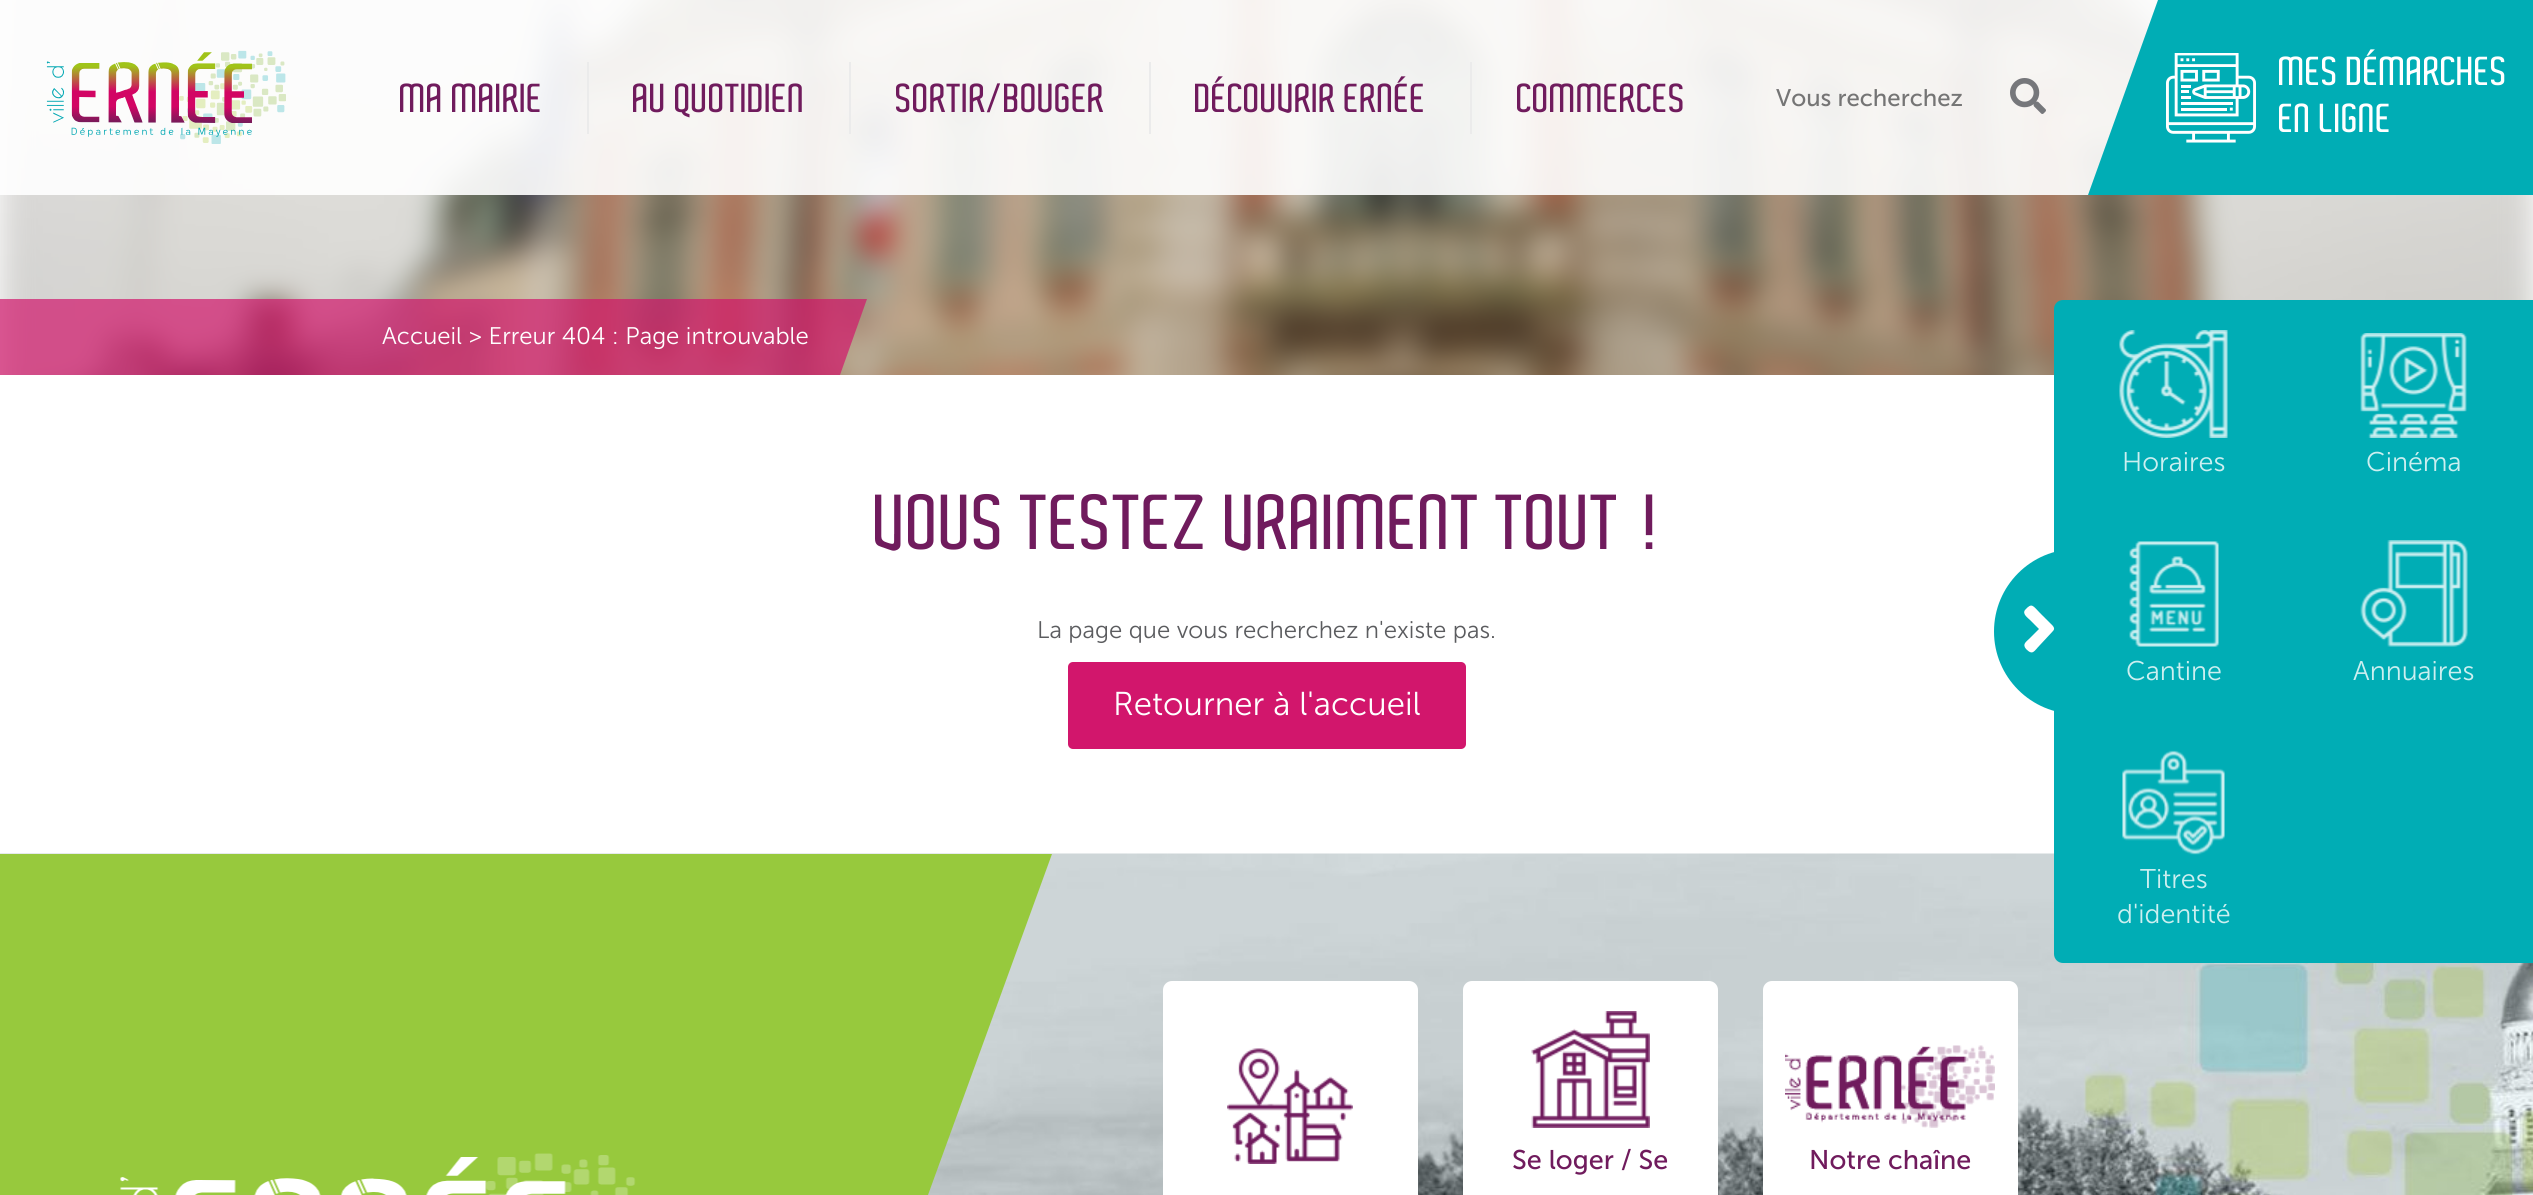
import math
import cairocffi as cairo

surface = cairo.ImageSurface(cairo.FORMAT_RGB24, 2533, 1195)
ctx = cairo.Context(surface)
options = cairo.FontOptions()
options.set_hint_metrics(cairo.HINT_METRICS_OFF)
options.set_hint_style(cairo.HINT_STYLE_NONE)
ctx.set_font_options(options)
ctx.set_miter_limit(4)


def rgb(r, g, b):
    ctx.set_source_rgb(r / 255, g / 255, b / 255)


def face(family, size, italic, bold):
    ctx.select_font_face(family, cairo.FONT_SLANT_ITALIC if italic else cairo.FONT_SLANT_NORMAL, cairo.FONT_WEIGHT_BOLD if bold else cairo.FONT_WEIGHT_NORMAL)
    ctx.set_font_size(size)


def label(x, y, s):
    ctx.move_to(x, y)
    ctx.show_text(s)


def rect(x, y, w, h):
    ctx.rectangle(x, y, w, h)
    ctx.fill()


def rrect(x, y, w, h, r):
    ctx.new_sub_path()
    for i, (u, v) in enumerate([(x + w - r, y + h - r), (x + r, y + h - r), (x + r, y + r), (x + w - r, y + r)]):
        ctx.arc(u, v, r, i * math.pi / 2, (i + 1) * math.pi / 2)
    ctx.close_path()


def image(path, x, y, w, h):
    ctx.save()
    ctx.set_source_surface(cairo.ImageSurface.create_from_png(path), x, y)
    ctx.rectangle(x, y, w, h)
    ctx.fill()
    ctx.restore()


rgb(255, 255, 255)
ctx.paint()
image('image3.png', 0, 0, 2533, 375)
ctx.set_source_rgba(1, 1, 1, 0.9)
rect(0, 0, 2158, 195)
image('image0.png', 46, 50, 240, 94)
face('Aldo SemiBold', 39, 0, 0)
rgb(112, 27, 93)
label(400, 112, 'MA MAIRIE')
rgb(235, 235, 235)
rect(587, 62, 2, 72)
rgb(112, 27, 93)
label(633, 112, 'AU QUOTIDIEN')
rgb(235, 235, 235)
rect(849, 62, 2, 72)
rgb(112, 27, 93)
label(896, 112, 'SORTIR/BOUGER')
rgb(235, 235, 235)
rect(1149, 62, 2, 72)
rgb(112, 27, 93)
label(1195, 112, 'DÉCOUVRIR ERNÉE')
rgb(235, 235, 235)
rect(1470, 62, 2, 72)
rgb(112, 27, 93)
label(1517, 112, 'COMMERCES')
face('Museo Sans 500', 24, 0, 0)
rgb(117, 117, 117)
label(1776, 106, 'Vous recherchez')
image('image1.png', 2010, 78, 36, 36)
rgb(0, 173, 181)
rect(2163, 0, 370, 195)
ctx.new_path()
ctx.move_to(2158, 0)
ctx.line_to(2234, 0)
ctx.line_to(2163, 195)
ctx.line_to(2088, 195)
ctx.close_path()
ctx.fill()
face('Aldo SemiBold', 39, 0, 0)
rgb(255, 255, 255)
label(2279, 85, 'MES DÉMARCHES')
label(2279, 132, 'EN LIGNE')
image('image2.png', 2166, 53, 90, 90)
ctx.set_source_rgba(0.824, 0.086, 0.424, 0.7)
ctx.new_path()
ctx.move_to(-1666, 299)
ctx.line_to(867, 299)
ctx.line_to(840, 375)
ctx.line_to(-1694, 375)
ctx.close_path()
ctx.fill()
face('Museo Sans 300 Light', 24, 0, 0)
rgb(255, 255, 255)
label(382, 344, 'Accueil > Erreur 404 : Page introuvable')
face('Aldo SemiBold', 75, 0, 0)
rgb(112, 27, 93)
label(875, 549, 'VOUS TESTEZ VRAIMENT TOUT !')
face('Museo Sans 300 Light', 24, 0, 0)
rgb(91, 92, 95)
label(1037, 638, 'La page que vous recherchez n\'existe pas.')
rgb(210, 22, 108)
rrect(1068, 662, 398, 87, 5)
ctx.fill()
face('Museo Sans 300 Light', 33, 0, 0)
rgb(255, 255, 255)
label(1113, 715, 'Retourner à l\'accueil')
image('image9.png', 0, 853, 2533, 342)
rgb(0, 173, 181)
ctx.new_path()
ctx.move_to(2063, 300)
ctx.line_to(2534, 300)
ctx.line_to(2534, 963)
ctx.line_to(2063, 963)
ctx.curve_to(2058, 963, 2054, 959, 2054, 954)
ctx.line_to(2054, 309)
ctx.curve_to(2054, 304, 2058, 300, 2063, 300)
ctx.close_path()
ctx.fill()
ctx.arc(2076.5, 631.5, 82.5, 0, 2 * math.pi)
ctx.fill()
rgb(255, 255, 255)
ctx.new_path()
ctx.move_to(2053, 631)
ctx.line_to(2040, 645)
ctx.curve_to(2034, 651, 2033, 656, 2026, 649)
ctx.curve_to(2022, 644, 2026, 642, 2030, 638)
ctx.line_to(2039, 629)
ctx.line_to(2030, 620)
ctx.curve_to(2028, 618, 2022, 614, 2025, 610)
ctx.curve_to(2032, 602, 2033, 606, 2040, 613)
ctx.line_to(2050, 623)
ctx.curve_to(2052, 625, 2056, 628, 2053, 631)
ctx.close_path()
ctx.fill()
image('image4.png', 2119, 330, 109, 108)
face('Museo Sans 300 Light', 27, 0, 0)
rgb(204, 239, 240)
label(2122, 471, 'Horaires')
image('image5.png', 2360, 333, 107, 105)
label(2366, 471, 'Cinéma')
image('image6.png', 2129, 541, 90, 106)
label(2126, 680, 'Cantine')
image('image7.png', 2360, 540, 108, 107)
label(2353, 680, 'Annuaires')
image('image8.png', 2122, 750, 103, 105)
label(2140, 888, 'Titres')
label(2117, 923, 'd\'identité')
rgb(151, 201, 61)
rect(0, 854, 292, 341)
ctx.new_path()
ctx.move_to(292, 854)
ctx.line_to(1052, 854)
ctx.line_to(760, 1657)
ctx.line_to(0, 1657)
ctx.close_path()
ctx.fill()
image('image10.png', 120, 1153, 516, 42)
rgb(255, 255, 255)
rrect(1163, 981, 255, 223, 9)
ctx.fill()
image('image11.png', 1227, 1048, 126, 116)
rrect(1463, 981, 255, 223, 9)
ctx.fill()
image('image12.png', 1531, 1011, 119, 117)
face('Museo Sans 500', 27, 0, 0)
rgb(112, 27, 93)
label(1512, 1169, 'Se loger / Se')
rgb(255, 255, 255)
rrect(1763, 981, 255, 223, 9)
ctx.fill()
image('image13.png', 1785, 1045, 210, 83)
rgb(112, 27, 93)
label(1809, 1169, 'Notre chaîne')
surface.write_to_png('render.png')
